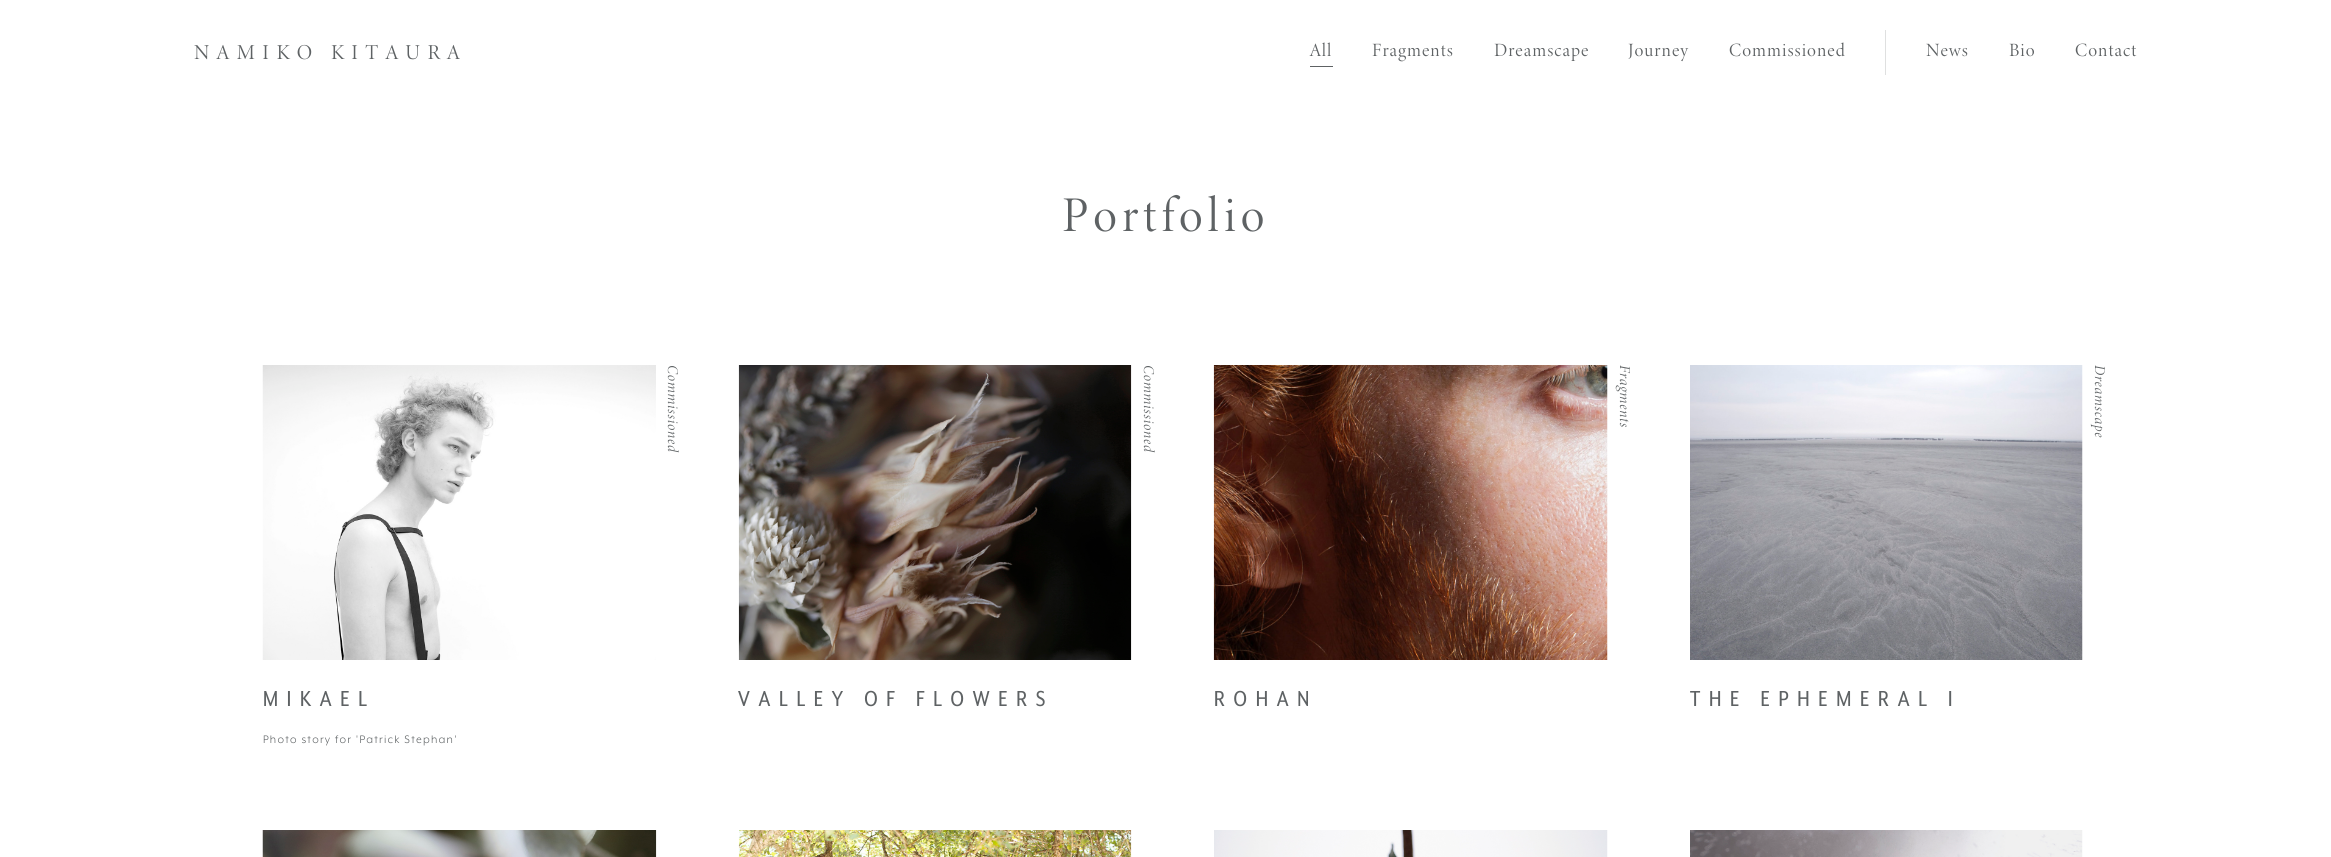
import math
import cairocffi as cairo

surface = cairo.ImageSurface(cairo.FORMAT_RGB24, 2331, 857)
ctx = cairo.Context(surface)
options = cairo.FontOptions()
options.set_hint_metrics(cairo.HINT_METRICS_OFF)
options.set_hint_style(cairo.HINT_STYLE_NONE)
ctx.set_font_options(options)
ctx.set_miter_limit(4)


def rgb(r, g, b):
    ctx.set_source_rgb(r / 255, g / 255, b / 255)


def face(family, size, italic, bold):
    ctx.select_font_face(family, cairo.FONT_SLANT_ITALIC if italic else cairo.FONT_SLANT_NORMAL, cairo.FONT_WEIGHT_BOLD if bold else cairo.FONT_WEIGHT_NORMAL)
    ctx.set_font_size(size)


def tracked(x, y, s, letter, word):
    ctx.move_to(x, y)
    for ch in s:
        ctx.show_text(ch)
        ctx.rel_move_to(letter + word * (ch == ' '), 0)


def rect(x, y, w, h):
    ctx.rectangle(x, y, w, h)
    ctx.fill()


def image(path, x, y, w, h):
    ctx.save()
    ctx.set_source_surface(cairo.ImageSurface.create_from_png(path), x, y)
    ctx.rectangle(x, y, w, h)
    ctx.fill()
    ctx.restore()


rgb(255, 255, 255)
ctx.paint()
face('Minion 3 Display', 21.25, 0, 0)
rgb(94, 98, 100)
tracked(194, 59, 'NAMIKO KITAURA', 7.5, 0)
face('Minion 3 Display', 18.75, 0, 0)
tracked(1310, 56, 'All', 1, 0)
rect(1310, 66, 23, 1)
tracked(1372, 56, 'Fragments', 1, 0)
tracked(1494, 56, 'Dreamscape', 1, 0)
tracked(1628, 56, 'Journey', 1, 0)
tracked(1729, 56, 'Commissioned', 1, 0)
rgb(223, 224, 224)
rect(1885, 30, 1, 45)
rgb(94, 98, 100)
tracked(1926, 56, 'News', 1, 0)
tracked(2009, 56, 'Bio', 1, 0)
tracked(2075, 56, 'Contact', 1, 0)
face('Minion 3 Display', 50, 0, 0)
tracked(1062, 231, 'Portfolio', 5, 0)
image('image0.png', 262, 365, 394, 295)
face('Minion 3 Display', 15, 1, 0)
ctx.save()
ctx.translate(668, 365)
ctx.rotate(90 * math.pi / 180)
tracked(0, 0, 'Commissioned', 0.75, 0)
ctx.restore()
face('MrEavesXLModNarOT', 25, 0, 0)
tracked(263, 706, 'MIKAEL', 8.75, 0)
face('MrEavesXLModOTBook', 12.5, 0, 0)
tracked(263, 743, 'Photo story for \'Patrick Stephan\'', 1.25, 0)
image('image1.png', 738, 365, 394, 295)
face('Minion 3 Display', 15, 1, 0)
ctx.save()
ctx.translate(1144, 365)
ctx.rotate(90 * math.pi / 180)
tracked(0, 0, 'Commissioned', 0.75, 0)
ctx.restore()
face('MrEavesXLModNarOT', 25, 0, 0)
tracked(738, 706, 'VALLEY OF FLOWERS', 8.75, 0)
image('image2.png', 1213, 365, 395, 295)
face('Minion 3 Display', 15, 1, 0)
ctx.save()
ctx.translate(1620, 365)
ctx.rotate(90 * math.pi / 180)
tracked(0, 0, 'Fragments', 0.75, 0)
ctx.restore()
face('MrEavesXLModNarOT', 25, 0, 0)
tracked(1214, 706, 'ROHAN', 8.75, 0)
image('image3.png', 1690, 365, 393, 295)
face('Minion 3 Display', 15, 1, 0)
ctx.save()
ctx.translate(2095, 365)
ctx.rotate(90 * math.pi / 180)
tracked(0, 0, 'Dreamscape', 0.75, 0)
ctx.restore()
face('MrEavesXLModNarOT', 25, 0, 0)
tracked(1690, 706, 'THE EPHEMERAL I', 8.75, 0)
image('image4.png', 262, 830, 395, 27)
image('image5.png', 738, 830, 394, 27)
image('image6.png', 1214, 830, 394, 27)
image('image7.png', 1690, 830, 393, 27)
surface.write_to_png('render.png')
